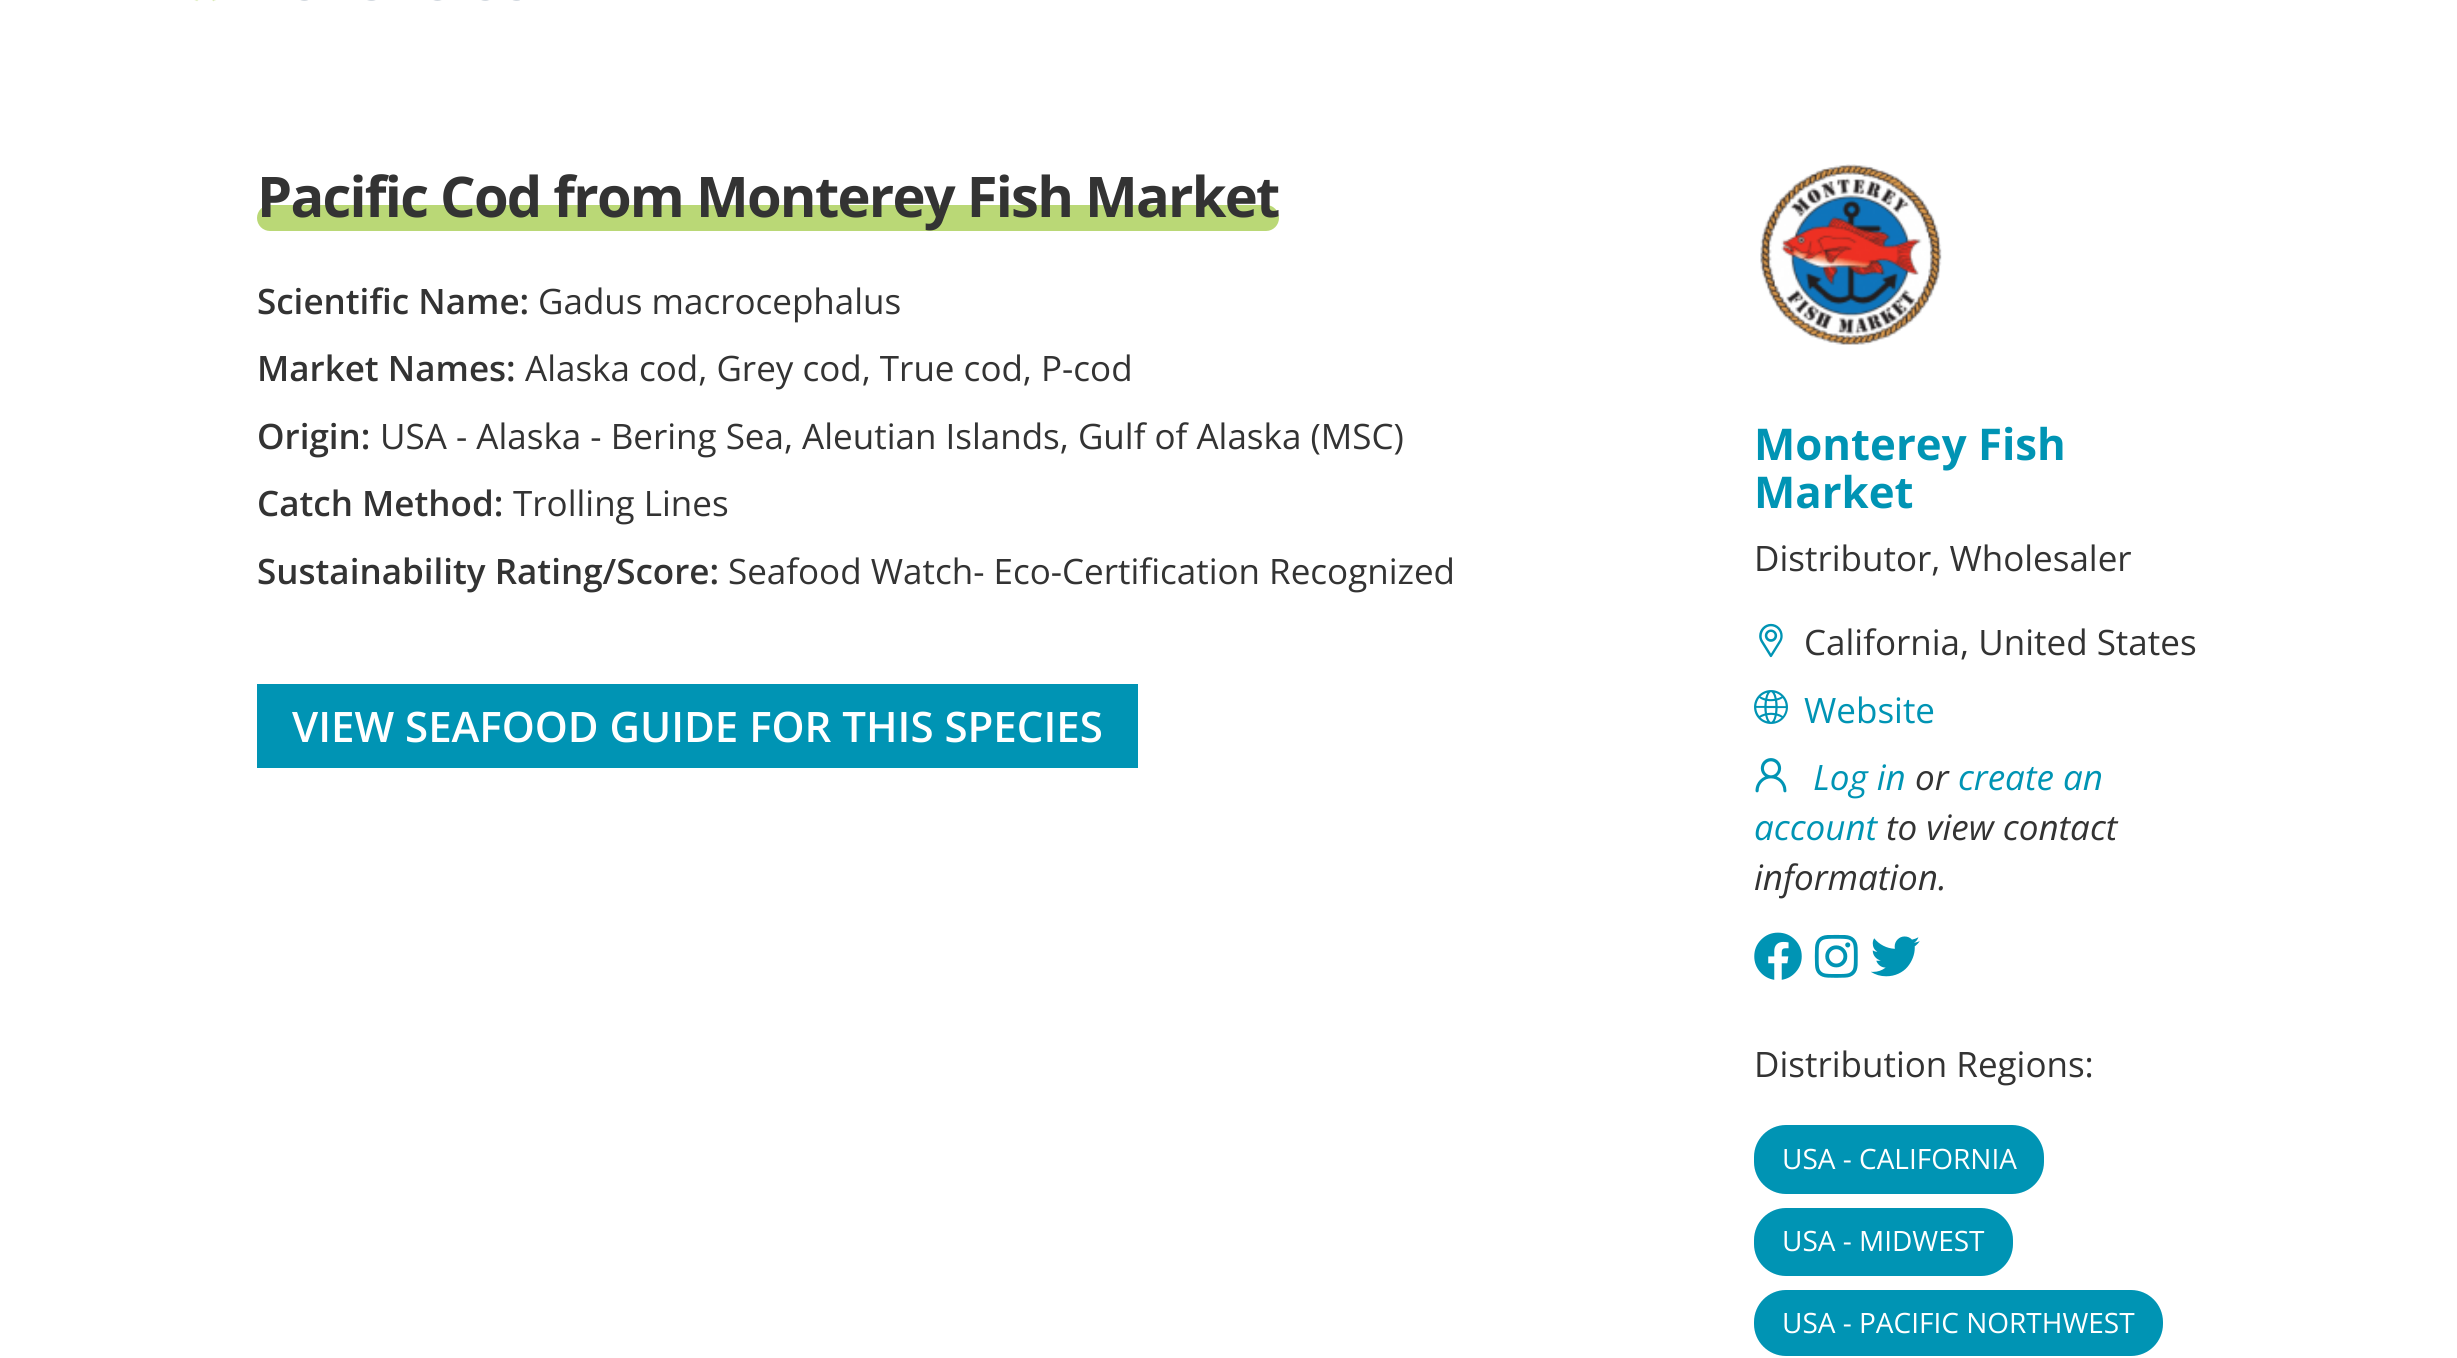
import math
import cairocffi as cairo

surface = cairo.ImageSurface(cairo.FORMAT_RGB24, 2457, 1358)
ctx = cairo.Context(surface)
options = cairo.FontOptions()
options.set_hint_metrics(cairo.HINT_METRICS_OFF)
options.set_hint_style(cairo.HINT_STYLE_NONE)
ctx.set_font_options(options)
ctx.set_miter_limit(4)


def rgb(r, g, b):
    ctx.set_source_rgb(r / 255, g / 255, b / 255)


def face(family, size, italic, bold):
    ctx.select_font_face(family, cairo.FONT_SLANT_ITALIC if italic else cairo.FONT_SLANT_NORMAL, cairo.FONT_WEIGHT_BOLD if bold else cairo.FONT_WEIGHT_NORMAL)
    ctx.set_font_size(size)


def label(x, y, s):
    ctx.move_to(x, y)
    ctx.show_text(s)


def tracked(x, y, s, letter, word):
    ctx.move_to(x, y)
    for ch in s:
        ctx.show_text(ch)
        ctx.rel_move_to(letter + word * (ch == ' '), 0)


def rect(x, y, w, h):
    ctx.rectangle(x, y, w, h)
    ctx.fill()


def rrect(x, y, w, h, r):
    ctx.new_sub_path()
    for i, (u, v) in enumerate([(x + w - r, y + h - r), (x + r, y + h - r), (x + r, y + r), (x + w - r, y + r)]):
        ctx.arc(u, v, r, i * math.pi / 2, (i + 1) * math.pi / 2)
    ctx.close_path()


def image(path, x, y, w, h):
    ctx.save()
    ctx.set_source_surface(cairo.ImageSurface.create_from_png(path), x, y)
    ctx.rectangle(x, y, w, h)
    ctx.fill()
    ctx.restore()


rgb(255, 255, 255)
ctx.paint()
image('image0.png', 194, 0, 326, 2)
rgb(186, 216, 118)
rrect(257, 205, 1022, 26, 13)
ctx.fill()
face('Open Sans', 56, 0, 1)
rgb(51, 51, 51)
tracked(257, 217, 'Pacific Cod from Monterey Fish Market', -1.75, 0)
face('Open Sans SemiBold', 35, 0, 0)
label(257, 314, 'Scientific Name:')
face('Open Sans', 35, 0, 0)
label(538, 314, 'Gadus macrocephalus')
face('Open Sans SemiBold', 35, 0, 0)
label(257, 381, 'Market Names:')
face('Open Sans', 35, 0, 0)
label(525, 381, 'Alaska cod, Grey cod, True cod, P-cod')
face('Open Sans SemiBold', 35, 0, 0)
label(257, 449, 'Origin:')
face('Open Sans', 35, 0, 0)
label(380, 449, 'USA - Alaska - Bering Sea, Aleutian Islands, Gulf of Alaska (MSC)')
face('Open Sans SemiBold', 35, 0, 0)
label(257, 516, 'Catch Method:')
face('Open Sans', 35, 0, 0)
label(513, 516, 'Trolling Lines')
face('Open Sans SemiBold', 35, 0, 0)
label(257, 584, 'Sustainability Rating/Score:')
face('Open Sans', 35, 0, 0)
label(728, 584, 'Seafood Watch- Eco-Certification Recognized')
rgb(0, 148, 180)
rect(257, 684, 881, 84)
face('Open Sans SemiBold', 42, 0, 0)
rgb(255, 255, 255)
label(292, 742, 'VIEW SEAFOOD GUIDE FOR THIS SPECIES')
image('image1.png', 1760, 164, 182, 181)
face('Open Sans', 43.75, 0, 1)
rgb(0, 148, 180)
label(1754, 460, 'Monterey Fish')
label(1754, 508, 'Market')
face('Open Sans', 35, 0, 0)
rgb(51, 51, 51)
label(1754, 571, 'Distributor, Wholesaler')
image('image2.png', 1759, 623, 24, 35)
label(1804, 655, 'California, United States')
image('image3.png', 1754, 690, 34, 34)
rgb(0, 148, 180)
label(1804, 723, 'Website')
image('image4.png', 1755, 758, 32, 35)
face('Open Sans', 35, 1, 0)
label(1813, 790, 'Log in')
rgb(51, 51, 51)
label(1915, 790, 'or')
rgb(0, 148, 180)
label(1958, 790, 'create an')
label(1754, 840, 'account')
rgb(51, 51, 51)
label(1886, 840, 'to view contact')
label(1754, 890, 'information.')
image('image5.png', 1754, 932, 48, 48)
image('image6.png', 1814, 934, 44, 44)
image('image7.png', 1871, 936, 49, 41)
face('Open Sans', 35, 0, 0)
label(1754, 1077, 'Distribution Regions:')
rgb(0, 148, 180)
rrect(1754, 1125, 290, 69, 32)
ctx.fill()
face('Open Sans', 28, 0, 0)
rgb(255, 255, 255)
label(1782, 1169, 'USA - CALIFORNIA')
rgb(0, 148, 180)
rrect(1754, 1208, 259, 68, 32)
ctx.fill()
rgb(255, 255, 255)
label(1782, 1251, 'USA - MIDWEST')
rgb(0, 148, 180)
rrect(1754, 1290, 409, 66, 32)
ctx.fill()
rgb(255, 255, 255)
label(1782, 1333, 'USA - PACIFIC NORTHWEST')
surface.write_to_png('render.png')
